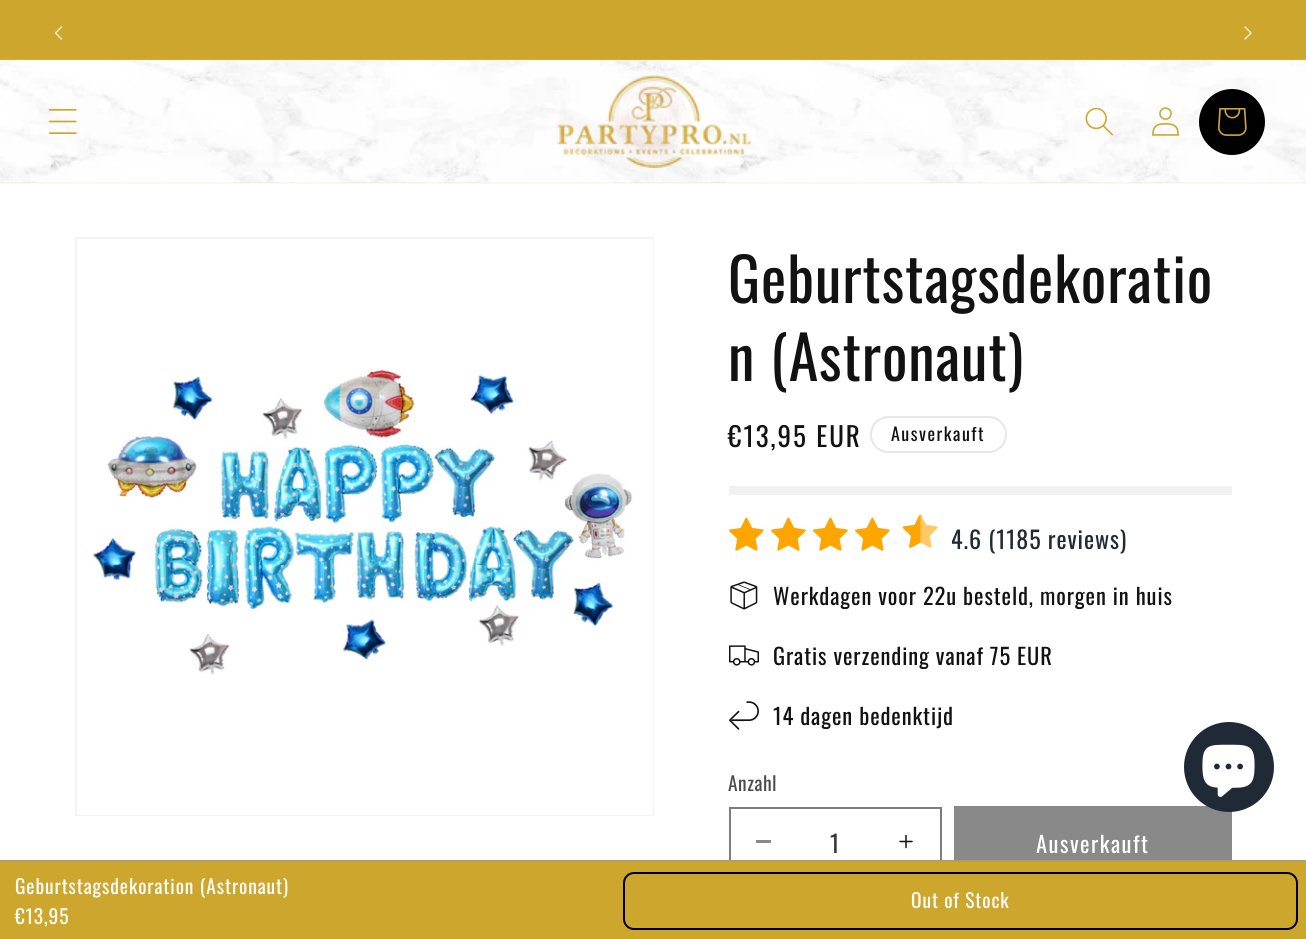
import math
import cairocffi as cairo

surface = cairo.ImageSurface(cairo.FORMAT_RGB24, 1306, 939)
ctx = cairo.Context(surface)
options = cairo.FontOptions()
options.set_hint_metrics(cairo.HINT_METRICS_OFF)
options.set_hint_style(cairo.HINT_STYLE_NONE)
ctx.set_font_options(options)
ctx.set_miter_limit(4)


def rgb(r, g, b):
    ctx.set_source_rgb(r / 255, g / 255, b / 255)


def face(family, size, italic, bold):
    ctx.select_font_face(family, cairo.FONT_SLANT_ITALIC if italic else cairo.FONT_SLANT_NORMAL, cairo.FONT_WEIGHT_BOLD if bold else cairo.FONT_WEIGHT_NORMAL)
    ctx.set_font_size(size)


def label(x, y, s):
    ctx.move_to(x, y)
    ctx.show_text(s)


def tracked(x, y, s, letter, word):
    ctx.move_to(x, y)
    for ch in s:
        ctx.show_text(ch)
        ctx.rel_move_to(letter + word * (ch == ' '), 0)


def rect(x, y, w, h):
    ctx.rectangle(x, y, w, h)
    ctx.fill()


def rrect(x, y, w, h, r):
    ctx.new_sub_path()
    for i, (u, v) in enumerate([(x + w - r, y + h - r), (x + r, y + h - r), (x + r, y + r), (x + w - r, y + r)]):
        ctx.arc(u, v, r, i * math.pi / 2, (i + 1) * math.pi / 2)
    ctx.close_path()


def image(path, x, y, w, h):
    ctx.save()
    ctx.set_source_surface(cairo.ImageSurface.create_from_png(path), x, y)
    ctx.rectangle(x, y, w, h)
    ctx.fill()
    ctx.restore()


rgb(255, 255, 255)
ctx.paint()
rgb(204, 166, 45)
rect(0, 0, 1306, 60)
ctx.set_source_rgba(1, 1, 1, 0.08)
rect(0, 59, 1306, 1)
image('image0.png', 54, 26, 9, 14)
image('image1.png', 1244, 26, 8, 14)
image('image2.png', 0, 60, 1306, 123)
ctx.set_source_rgba(0.8, 0.651, 0.176, 0.08)
rect(0, 182, 1306, 2)
image('image3.png', 48, 109, 29, 25)
image('image4.png', 556, 74, 196, 94)
image('image5.png', 1085, 107, 28, 29)
image('image6.png', 1152, 107, 27, 29)
rgb(0, 0, 0)
ctx.arc(1232, 122, 33, 0, 2 * math.pi)
ctx.fill()
image('image7.png', 1218, 108, 29, 28)
ctx.rectangle(76, 238, 577, 577)
rgb(243, 243, 243)
ctx.stroke()
image('image8.png', 77, 239, 576, 576)
face('Oswald', 60, 0, 0)
rgb(18, 18, 18)
tracked(728, 303, 'Geburtstagsdekoratio', 0.9, 0)
tracked(728, 381, 'n (Astronaut)', 0.9, 0)
face('Oswald', 27, 0, 0)
tracked(728, 447, '€13,95 EUR', 2, 0)
rrect(871, 417, 135, 35, 17.5)
rgb(231, 231, 231)
ctx.stroke()
face('Oswald', 18, 0, 0)
rgb(18, 18, 18)
tracked(891, 441, 'Ausverkauft', 1.5, 0)
rgb(241, 241, 241)
rect(729, 486, 503, 9)
image('image9.png', 729, 517, 35, 34)
image('image9.png', 771, 517, 35, 34)
image('image9.png', 813, 517, 35, 34)
image('image9.png', 855, 517, 35, 34)
rgb(255, 165, 0)
ctx.new_path()
ctx.move_to(920.5, 514.5)
ctx.line_to(920.5, 542.5)
ctx.curve_to(906.5, 550, 908.5, 551, 911, 536)
ctx.curve_to(900, 525, 899, 527, 914.5, 525)
ctx.curve_to(915.5, 523.5, 919, 514.5, 920.5, 514.5)
ctx.close_path()
ctx.fill()
image('image10.png', 903, 514, 35, 34)
face('Oswald', 24, 0, 0)
rgb(33, 43, 53)
tracked(951, 549, '4.6 (1185 reviews)', 0.9, 0)
image('image11.png', 730, 581, 28, 29)
face('Oswald', 22.5, 0, 0)
rgb(18, 18, 18)
tracked(773, 605, 'Werkdagen voor 22u besteld, morgen in huis', 0.9, 0)
image('image12.png', 729, 645, 30, 21)
tracked(773, 665, 'Gratis verzending vanaf 75 EUR', 0.9, 0)
image('image13.png', 729, 701, 30, 29)
tracked(773, 725, '14 dagen bedenktijd', 0.9, 0)
face('Oswald', 19.5, 0, 0)
rgb(77, 77, 77)
tracked(728, 791, 'Anzahl', 0.5, 0)
rgb(137, 137, 137)
rect(756, 840, 15, 3)
image('image14.png', 899, 834, 14, 15)
ctx.rectangle(730, 808, 211, 69)
rgb(125, 125, 125)
ctx.stroke()
face('Oswald', 24, 0, 0)
rgb(54, 54, 54)
label(830, 853, '1')
rgb(137, 137, 137)
rect(954, 806, 278, 54)
face('Oswald', 22.5, 0, 0)
rgb(255, 255, 255)
tracked(1036, 853, 'Ausverkauft', 1.5, 0)
rgb(32, 42, 54)
ctx.new_path()
ctx.arc(1229, 767, 45, 0, 2 * math.pi)
ctx.fill()
image('image15.png', 1202, 744, 53, 53)
rgb(204, 166, 45)
rect(0, 862, 1306, 77)
rgb(184, 159, 88)
rect(0, 860, 1306, 2)
face('Oswald', 19.5, 0, 0)
rgb(255, 255, 255)
tracked(15, 894, 'Geburtstagsdekoration (Astronaut)', 0.9, 0)
tracked(15, 924, '€13,95', 0.9, 0)
rrect(624, 873, 673, 56, 10)
rgb(0, 0, 0)
ctx.stroke()
rgb(255, 255, 255)
tracked(911, 908, 'Out of Stock', 0.9, 0)
surface.write_to_png('render.png')
